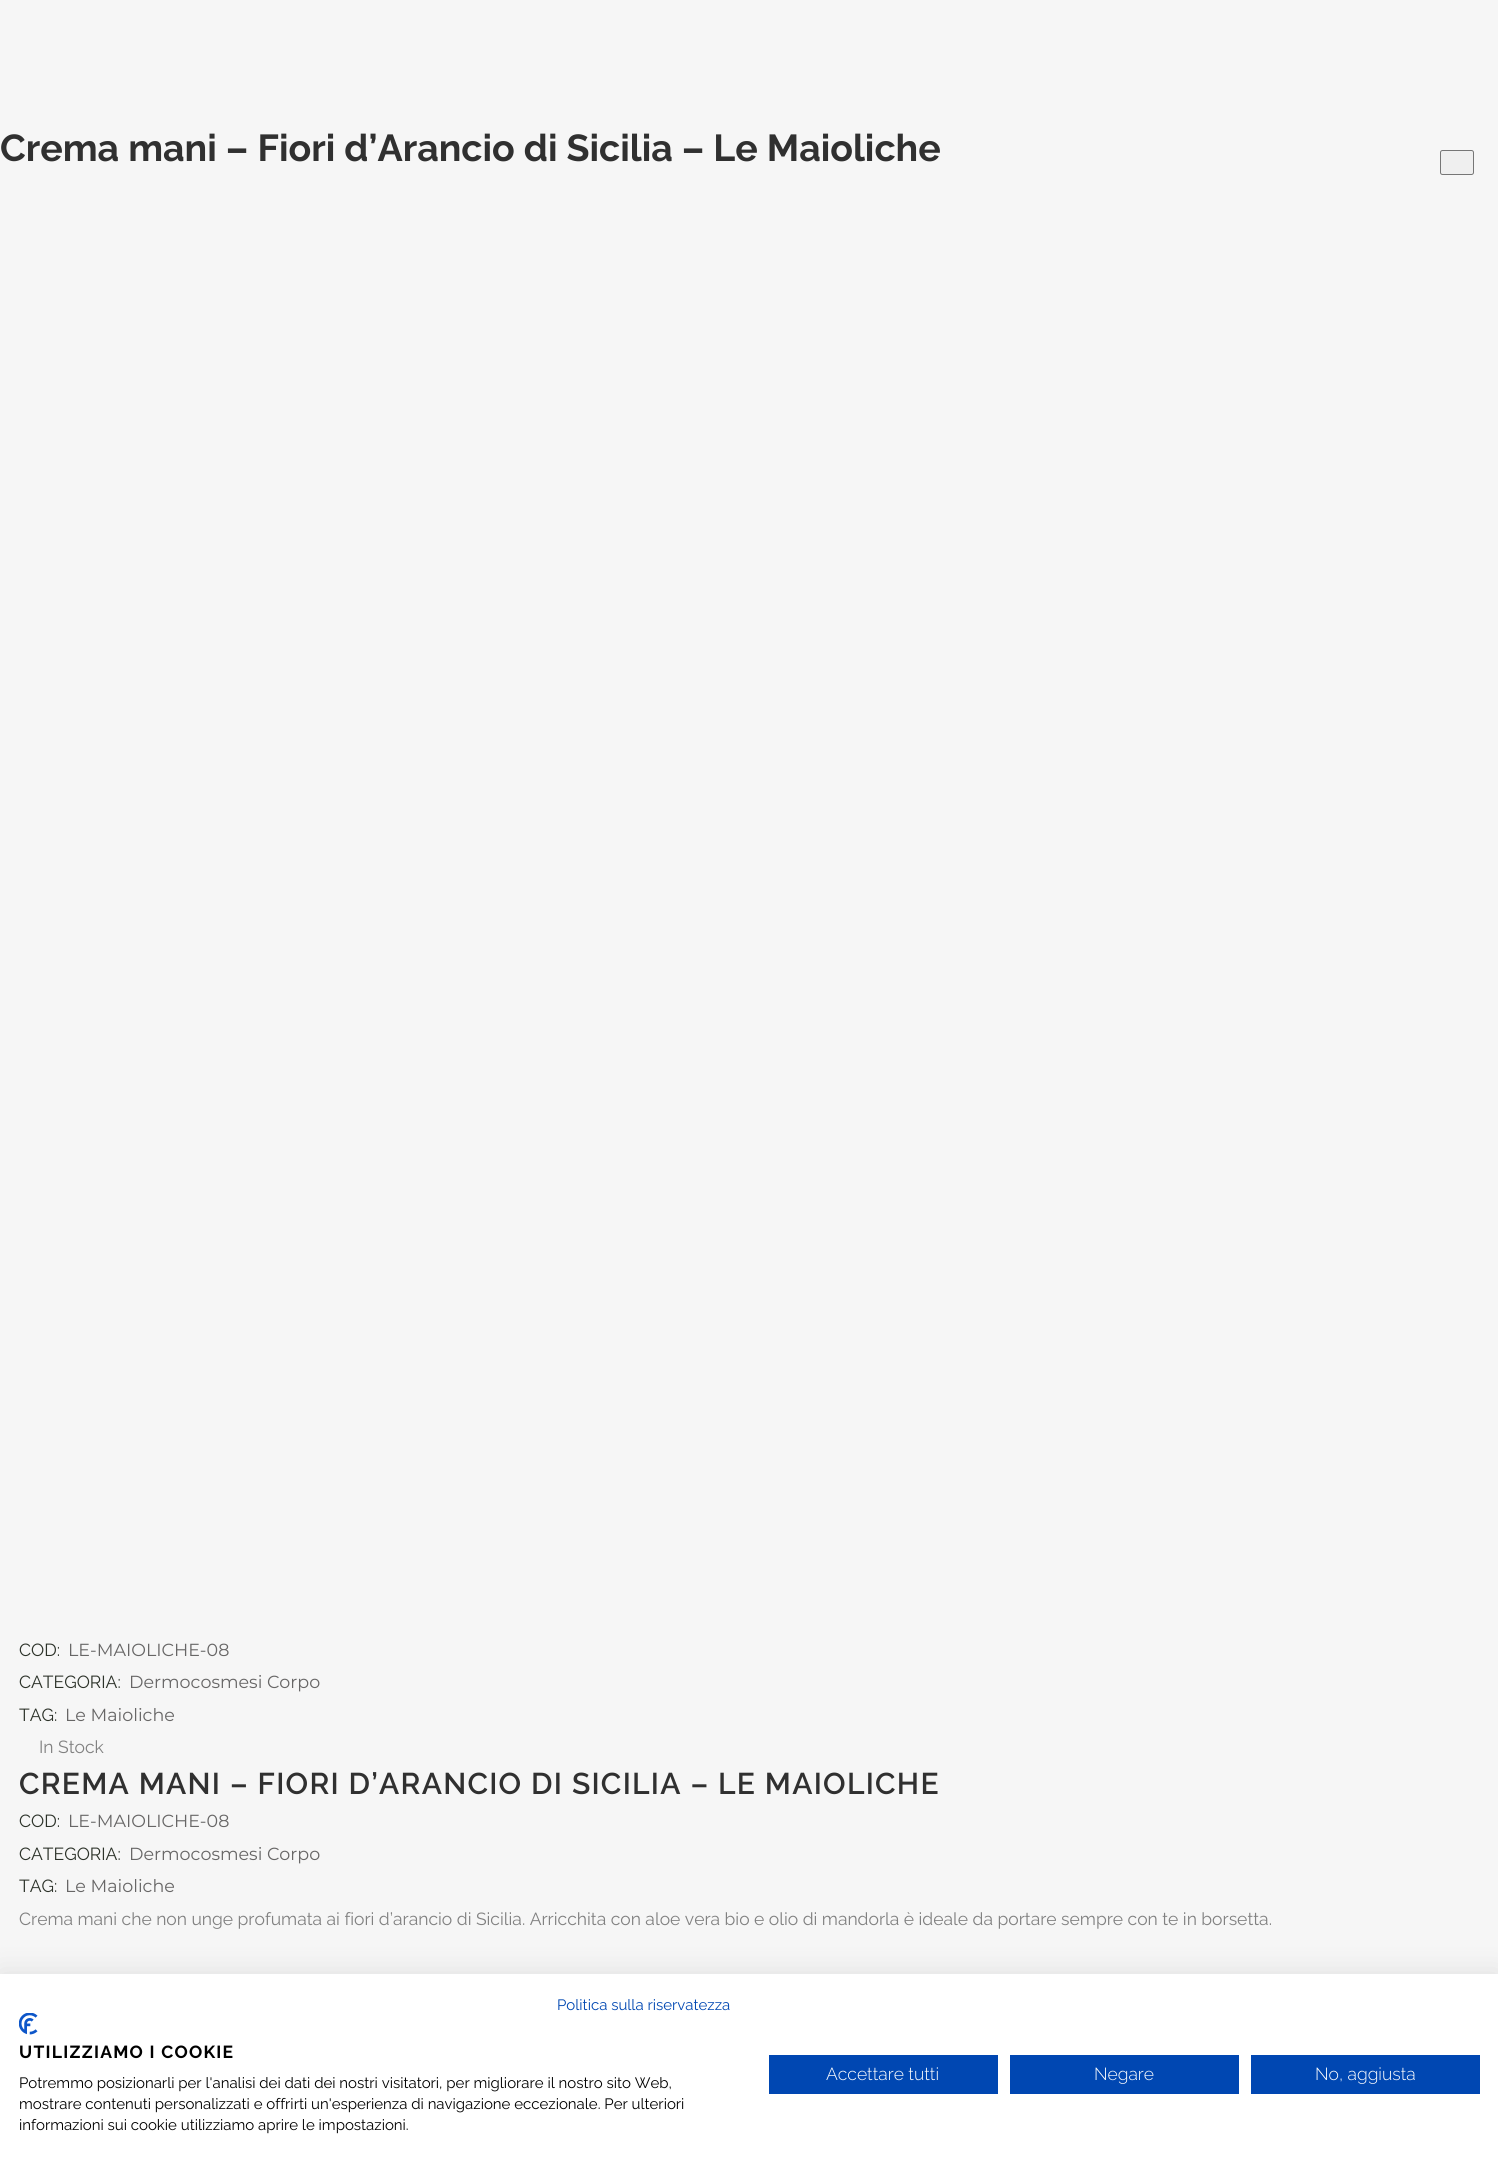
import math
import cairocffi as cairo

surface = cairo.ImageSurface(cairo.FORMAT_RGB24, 1498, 2169)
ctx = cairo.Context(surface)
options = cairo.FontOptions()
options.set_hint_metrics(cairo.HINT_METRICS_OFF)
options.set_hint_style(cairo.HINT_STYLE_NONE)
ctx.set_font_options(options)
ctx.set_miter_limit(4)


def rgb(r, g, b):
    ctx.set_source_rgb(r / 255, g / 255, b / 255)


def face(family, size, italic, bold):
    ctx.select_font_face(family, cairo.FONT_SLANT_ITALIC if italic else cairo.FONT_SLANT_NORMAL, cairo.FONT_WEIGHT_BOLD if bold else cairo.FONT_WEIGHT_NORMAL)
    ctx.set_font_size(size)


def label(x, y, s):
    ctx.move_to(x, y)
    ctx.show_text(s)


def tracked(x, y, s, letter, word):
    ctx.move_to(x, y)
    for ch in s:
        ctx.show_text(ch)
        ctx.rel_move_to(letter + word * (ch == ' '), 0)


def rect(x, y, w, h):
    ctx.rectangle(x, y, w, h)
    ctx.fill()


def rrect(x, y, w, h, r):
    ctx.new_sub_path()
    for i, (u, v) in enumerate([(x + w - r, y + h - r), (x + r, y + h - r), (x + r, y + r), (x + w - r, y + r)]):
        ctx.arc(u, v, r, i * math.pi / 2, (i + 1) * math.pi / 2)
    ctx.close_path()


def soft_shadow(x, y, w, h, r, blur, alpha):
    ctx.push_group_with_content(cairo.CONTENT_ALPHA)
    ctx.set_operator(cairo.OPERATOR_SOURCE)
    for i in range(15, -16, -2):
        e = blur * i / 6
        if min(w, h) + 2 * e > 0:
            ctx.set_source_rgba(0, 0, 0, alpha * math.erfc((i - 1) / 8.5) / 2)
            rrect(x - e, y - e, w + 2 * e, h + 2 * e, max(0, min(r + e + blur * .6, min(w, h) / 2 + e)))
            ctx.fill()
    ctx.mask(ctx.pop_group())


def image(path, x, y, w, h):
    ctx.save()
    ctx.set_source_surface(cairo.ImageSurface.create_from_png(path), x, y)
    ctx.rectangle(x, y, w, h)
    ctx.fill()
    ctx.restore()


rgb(246, 246, 246)
ctx.paint()
face('Raleway', 37.5, 0, 1)
rgb(48, 48, 48)
label(0, 161, 'Crema mani – Fiori d’Arancio di Sicilia – Le Maioliche')
rgb(239, 239, 239)
rrect(1440.5, 150.5, 33, 24, 2)
ctx.fill_preserve()
rgb(118, 118, 118)
ctx.set_line_width(1)
ctx.stroke()
face('Raleway', 17.5, 0, 0)
rgb(44, 50, 41)
label(19, 1656, 'COD:')
face('Montserrat', 17.5, 0, 0)
rgb(103, 102, 102)
label(68, 1656, 'LE-MAIOLICHE-08')
face('Raleway', 17.5, 0, 0)
rgb(44, 50, 41)
label(19, 1688, 'CATEGORIA:')
face('Montserrat', 17.5, 0, 0)
rgb(103, 102, 102)
label(129, 1688, 'Dermocosmesi Corpo')
face('Raleway', 17.5, 0, 0)
rgb(44, 50, 41)
label(19, 1721, 'TAG:')
face('Montserrat', 17.5, 0, 0)
rgb(103, 102, 102)
label(65, 1721, 'Le Maioliche')
face('Raleway', 17.5, 0, 0)
rgb(129, 129, 129)
label(39, 1753, 'In Stock')
face('Raleway SemiBold', 30, 0, 0)
rgb(48, 48, 48)
tracked(19, 1794, 'CREMA MANI – FIORI D’ARANCIO DI SICILIA – LE MAIOLICHE', 1.25, 0)
face('Raleway', 17.5, 0, 0)
rgb(44, 50, 41)
label(19, 1827, 'COD:')
face('Montserrat', 17.5, 0, 0)
rgb(103, 102, 102)
label(68, 1827, 'LE-MAIOLICHE-08')
face('Raleway', 17.5, 0, 0)
rgb(44, 50, 41)
label(19, 1860, 'CATEGORIA:')
face('Montserrat', 17.5, 0, 0)
rgb(103, 102, 102)
label(129, 1860, 'Dermocosmesi Corpo')
face('Raleway', 17.5, 0, 0)
rgb(44, 50, 41)
label(19, 1892, 'TAG:')
face('Montserrat', 17.5, 0, 0)
rgb(103, 102, 102)
label(65, 1892, 'Le Maioliche')
face('Raleway', 17.5, 0, 0)
rgb(129, 129, 129)
label(19, 1925, 'Crema mani che non unge profumata ai fiori d’arancio di Sicilia. Arricchita con aloe vera bio e olio di mandorla è ideale da portare sempre con te in borsetta.')
rgb(0, 0, 0)
soft_shadow(0, 1974, 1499, 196, 0, 15, 0.1)
rgb(255, 255, 255)
rect(0, 1974, 1498, 195)
face('Raleway', 15, 0, 0)
rgb(0, 71, 178)
label(557, 2010, 'Politica sulla riservatezza')
image('image0.png', 19, 2013, 19, 22)
face('Raleway', 17.5, 0, 1)
rgb(0, 0, 0)
tracked(19, 2058, 'UTILIZZIAMO I COOKIE', 1.25, 0)
face('Raleway', 15, 0, 0)
label(19, 2088, 'Potremmo posizionarli per l\'analisi dei dati dei nostri visitatori, per migliorare il nostro sito Web,')
label(19, 2109, 'mostrare contenuti personalizzati e offrirti un\'esperienza di navigazione eccezionale. Per ulteriori')
label(19, 2130, 'informazioni sui cookie utilizziamo aprire le impostazioni.')
rgb(0, 71, 178)
rect(769, 2055, 229, 39)
face('Raleway Light', 17.5, 0, 0)
rgb(255, 255, 255)
label(826, 2080, 'Accettare tutti')
rgb(0, 71, 178)
rect(1010, 2055, 229, 39)
rgb(255, 255, 255)
label(1094, 2080, 'Negare')
rgb(0, 71, 178)
rect(1251, 2055, 229, 39)
rgb(255, 255, 255)
label(1315, 2080, 'No, aggiusta')
surface.write_to_png('render.png')
